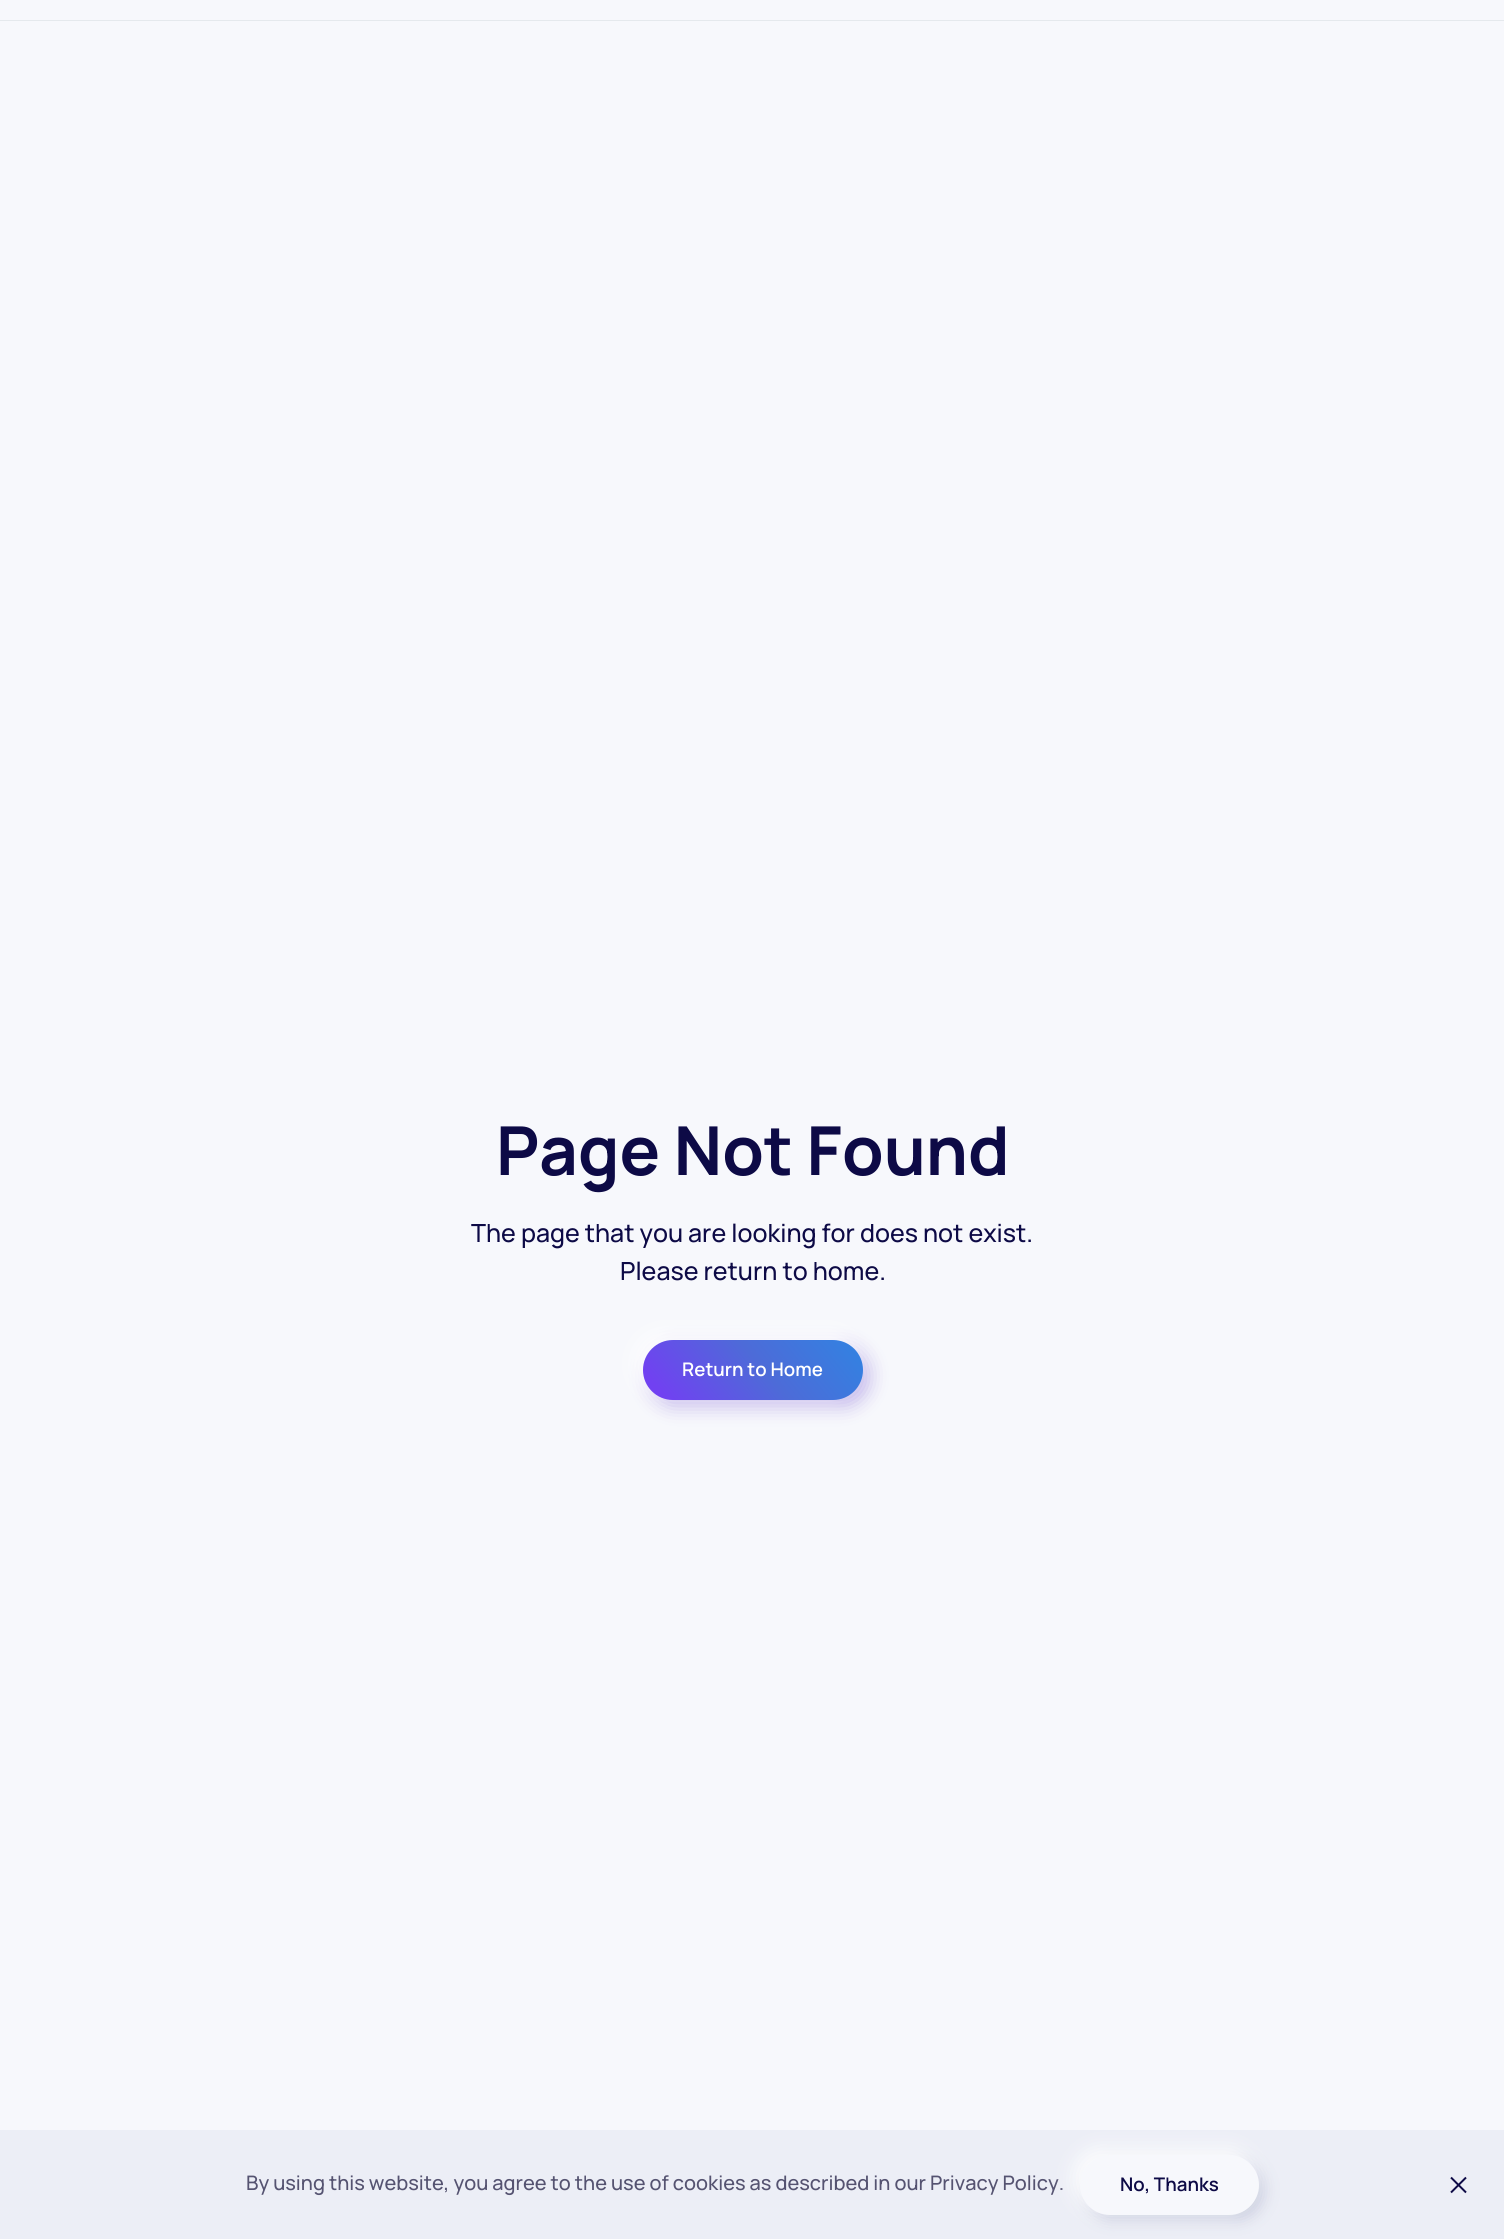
import math
import cairocffi as cairo

surface = cairo.ImageSurface(cairo.FORMAT_RGB24, 1504, 2239)
ctx = cairo.Context(surface)
options = cairo.FontOptions()
options.set_hint_metrics(cairo.HINT_METRICS_OFF)
options.set_hint_style(cairo.HINT_STYLE_NONE)
ctx.set_font_options(options)
ctx.set_miter_limit(4)


def rgb(r, g, b):
    ctx.set_source_rgb(r / 255, g / 255, b / 255)


def face(family, size, italic, bold):
    ctx.select_font_face(family, cairo.FONT_SLANT_ITALIC if italic else cairo.FONT_SLANT_NORMAL, cairo.FONT_WEIGHT_BOLD if bold else cairo.FONT_WEIGHT_NORMAL)
    ctx.set_font_size(size)


def label(x, y, s):
    ctx.move_to(x, y)
    ctx.show_text(s)


def rect(x, y, w, h):
    ctx.rectangle(x, y, w, h)
    ctx.fill()


def rrect(x, y, w, h, r):
    ctx.new_sub_path()
    for i, (u, v) in enumerate([(x + w - r, y + h - r), (x + r, y + h - r), (x + r, y + r), (x + w - r, y + r)]):
        ctx.arc(u, v, r, i * math.pi / 2, (i + 1) * math.pi / 2)
    ctx.close_path()


def soft_shadow(x, y, w, h, r, blur, alpha):
    ctx.push_group_with_content(cairo.CONTENT_ALPHA)
    ctx.set_operator(cairo.OPERATOR_SOURCE)
    for i in range(15, -16, -2):
        e = blur * i / 6
        if min(w, h) + 2 * e > 0:
            ctx.set_source_rgba(0, 0, 0, alpha * math.erfc((i - 1) / 8.5) / 2)
            rrect(x - e, y - e, w + 2 * e, h + 2 * e, max(0, min(r + e + blur * .6, min(w, h) / 2 + e)))
            ctx.fill()
    ctx.mask(ctx.pop_group())


rgb(247, 248, 252)
ctx.paint()
rgb(229, 233, 237)
rect(0, 20, 1504, 1)
face('Manrope ExtraLight', 67.5, 0, 0)
rgb(13, 10, 70)
label(496, 1175, 'Page Not Found')
face('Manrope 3 ExtraLight', 25, 0, 0)
label(471, 1242, 'The page that you are looking for does not exist.')
label(620, 1280, 'Please return to home.')
rgb(60, 14, 189)
soft_shadow(649, 1346, 220, 60, 30, 9.5, 0.3)
rgb(255, 255, 255)
soft_shadow(636, 1334, 220, 60, 30, 9.5, 0.9)
gradient = cairo.LinearGradient(495, 1489, 790, 1251)
gradient.add_color_stop_rgba(0.5, 0.443, 0.255, 0.945, 1)
gradient.add_color_stop_rgba(0.75, 0.302, 0.42, 0.847, 1)
gradient.add_color_stop_rgba(1, 0.192, 0.514, 0.886, 1)
ctx.set_source(gradient)
rrect(643, 1340, 220, 60, 30)
ctx.fill()
face('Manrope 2 ExtraLight', 18.75, 0, 0)
rgb(255, 255, 255)
label(682, 1376, 'Return to Home')
rgb(236, 238, 246)
rect(0, 2130, 1504, 109)
face('Manrope 3 ExtraLight', 20, 0, 0)
rgb(85, 83, 113)
label(246, 2190, 'By using this website, you agree to the use of cookies as described in our Privacy Policy.')
rgb(57, 65, 124)
soft_shadow(1085, 2160, 179, 60, 30, 7.5, 0.2)
rgb(255, 255, 255)
soft_shadow(1074, 2149, 179, 60, 30, 9.5, 0.9)
rgb(247, 248, 252)
rrect(1080, 2155, 179, 60, 30)
ctx.fill()
face('Manrope 2 ExtraLight', 18.75, 0, 0)
rgb(13, 10, 70)
label(1120, 2191, 'No, Thanks')
ctx.new_path()
ctx.move_to(1451, 2177.5)
ctx.line_to(1466, 2192.5)
ctx.move_to(1466, 2177.5)
ctx.line_to(1451, 2192.5)
ctx.stroke()
surface.write_to_png('render.png')
